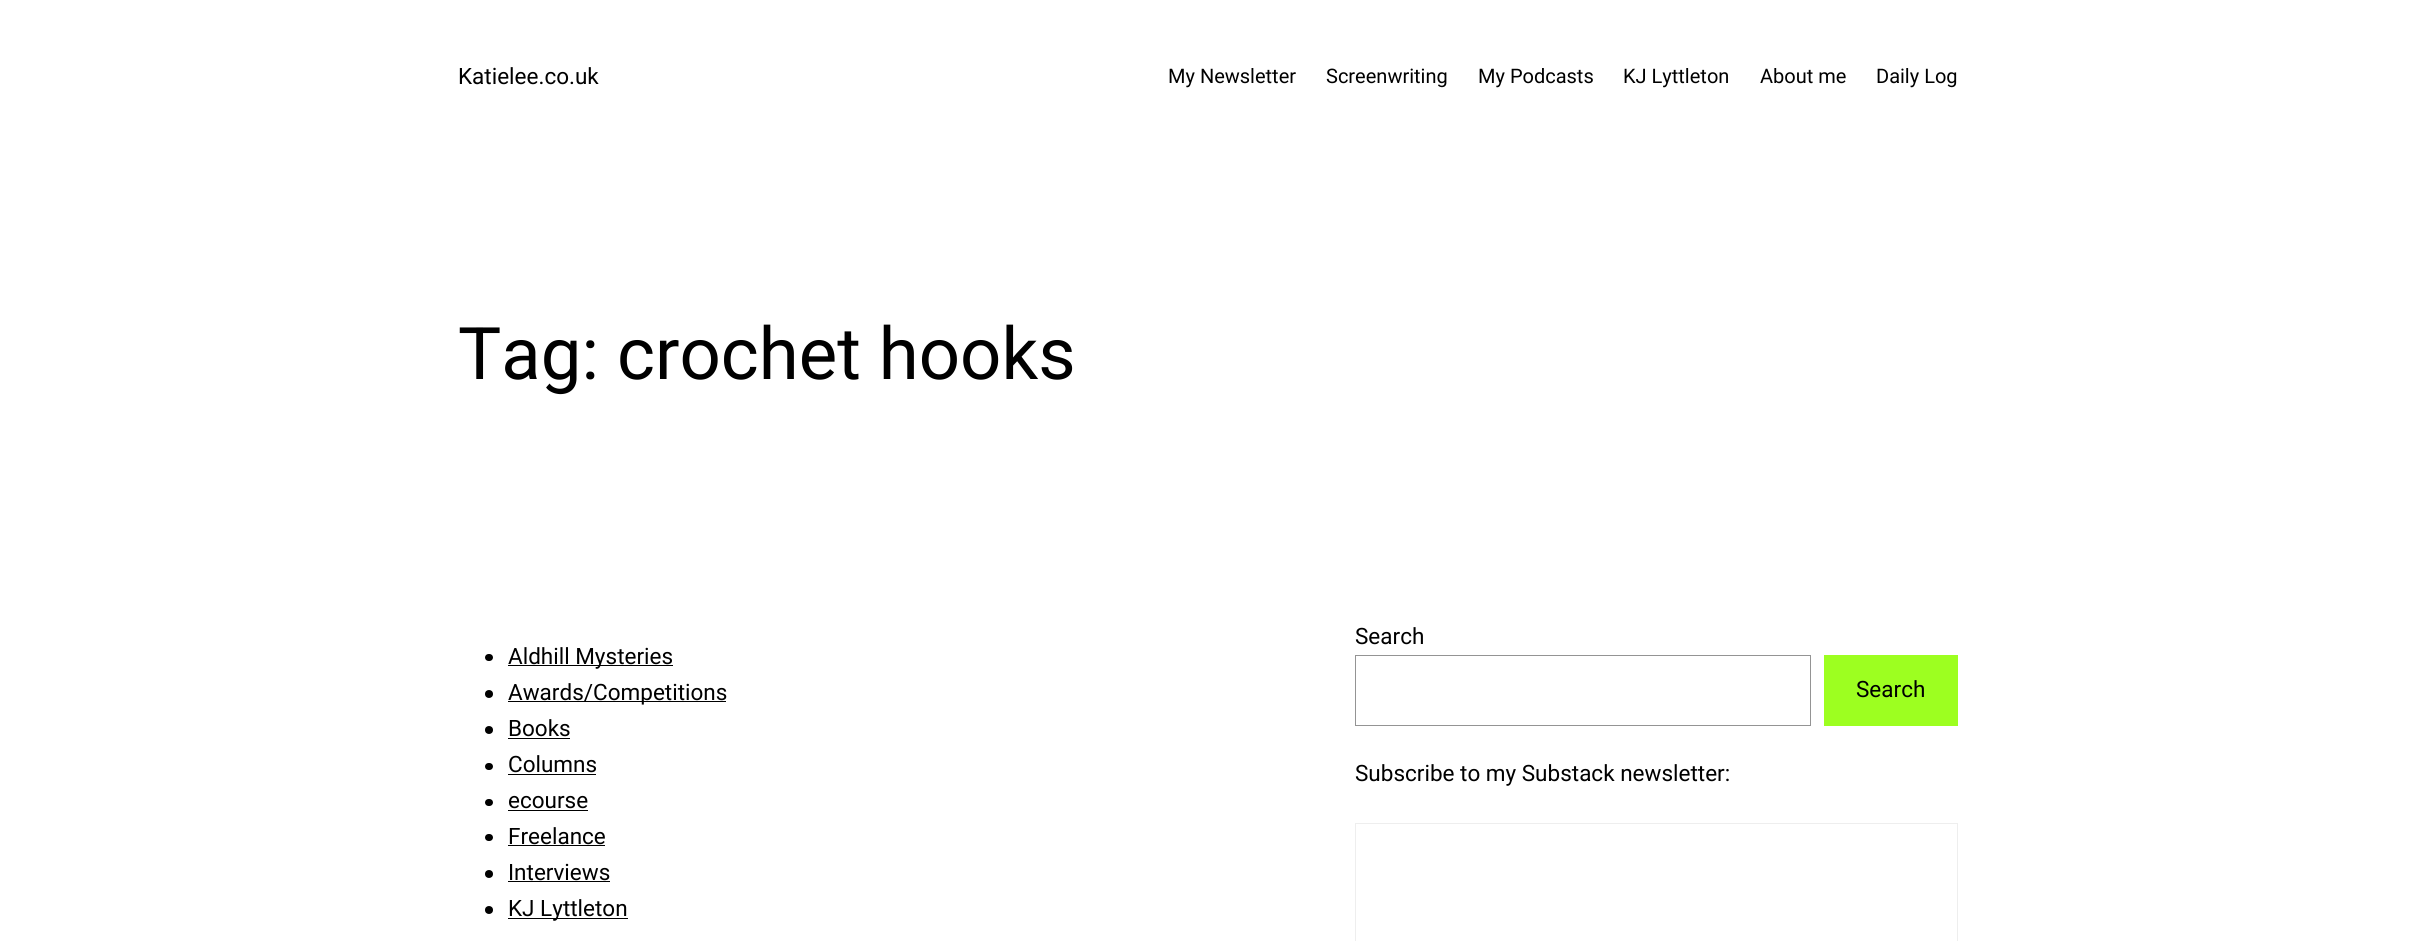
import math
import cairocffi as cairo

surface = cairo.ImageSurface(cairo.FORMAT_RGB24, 2414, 941)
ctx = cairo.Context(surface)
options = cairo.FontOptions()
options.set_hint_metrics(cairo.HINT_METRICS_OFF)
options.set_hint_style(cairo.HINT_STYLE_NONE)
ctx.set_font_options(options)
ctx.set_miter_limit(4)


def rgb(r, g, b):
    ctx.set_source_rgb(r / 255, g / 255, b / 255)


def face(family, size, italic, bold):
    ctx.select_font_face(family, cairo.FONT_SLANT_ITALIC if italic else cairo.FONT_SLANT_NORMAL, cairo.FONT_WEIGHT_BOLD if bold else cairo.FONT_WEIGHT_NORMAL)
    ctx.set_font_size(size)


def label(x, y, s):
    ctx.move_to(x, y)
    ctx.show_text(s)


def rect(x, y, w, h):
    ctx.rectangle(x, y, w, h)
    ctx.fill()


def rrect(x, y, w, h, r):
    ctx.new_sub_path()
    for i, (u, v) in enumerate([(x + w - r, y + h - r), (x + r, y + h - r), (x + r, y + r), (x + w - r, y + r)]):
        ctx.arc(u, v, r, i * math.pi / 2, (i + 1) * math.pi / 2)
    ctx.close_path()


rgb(255, 255, 255)
ctx.paint()
face('Roboto', 22.5, 0, 0)
rgb(0, 0, 0)
label(458, 84, 'Katielee.co.uk')
face('Roboto', 20, 0, 0)
label(1168, 83, 'My Newsletter')
label(1326, 83, 'Screenwriting')
label(1478, 83, 'My Podcasts')
label(1623, 83, 'KJ Lyttleton')
label(1760, 83, 'About me')
label(1876, 83, 'Daily Log')
face('Roboto', 72.5, 0, 0)
label(458, 379, 'Tag: crochet hooks')
rrect(485, 654, 8, 7, 3.5)
ctx.fill()
rect(508, 665, 165, 1)
face('Roboto', 22.5, 0, 0)
label(508, 664, 'Aldhill Mysteries')
ctx.new_path()
ctx.arc(489, 694, 4, 0, 2 * math.pi)
ctx.fill()
rect(508, 701, 218, 1)
label(508, 700, 'Awards/Competitions')
ctx.new_path()
ctx.arc(489, 730, 4, 0, 2 * math.pi)
ctx.fill()
label(508, 736, 'Books')
rect(508, 738, 62, 1)
rrect(485, 763, 8, 7, 3.5)
ctx.fill()
label(508, 772, 'Columns')
rect(508, 774, 88, 1)
rrect(485, 799, 8, 7, 3.5)
ctx.fill()
label(508, 808, 'ecourse')
rect(508, 810, 80, 1)
rrect(485, 834, 8, 7, 3.5)
ctx.fill()
label(508, 844, 'Freelance')
rect(508, 845, 97, 1)
ctx.new_path()
ctx.arc(489, 874, 4, 0, 2 * math.pi)
ctx.fill()
label(508, 880, 'Interviews')
rect(508, 881, 102, 1)
ctx.new_path()
ctx.arc(489, 910, 4, 0, 2 * math.pi)
ctx.fill()
rect(508, 918, 120, 1)
label(508, 916, 'KJ Lyttleton')
label(1355, 644, 'Search')
ctx.rectangle(1355.5, 655.5, 455, 70)
rgb(148, 148, 148)
ctx.set_line_width(1)
ctx.stroke()
rgb(157, 255, 32)
rect(1824, 655, 134, 71)
rgb(0, 0, 0)
label(1856, 697, 'Search')
label(1355, 781, 'Subscribe to my Substack newsletter:')
ctx.rectangle(1355.5, 823.5, 602, 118)
rgb(238, 238, 238)
ctx.stroke()
surface.write_to_png('render.png')
